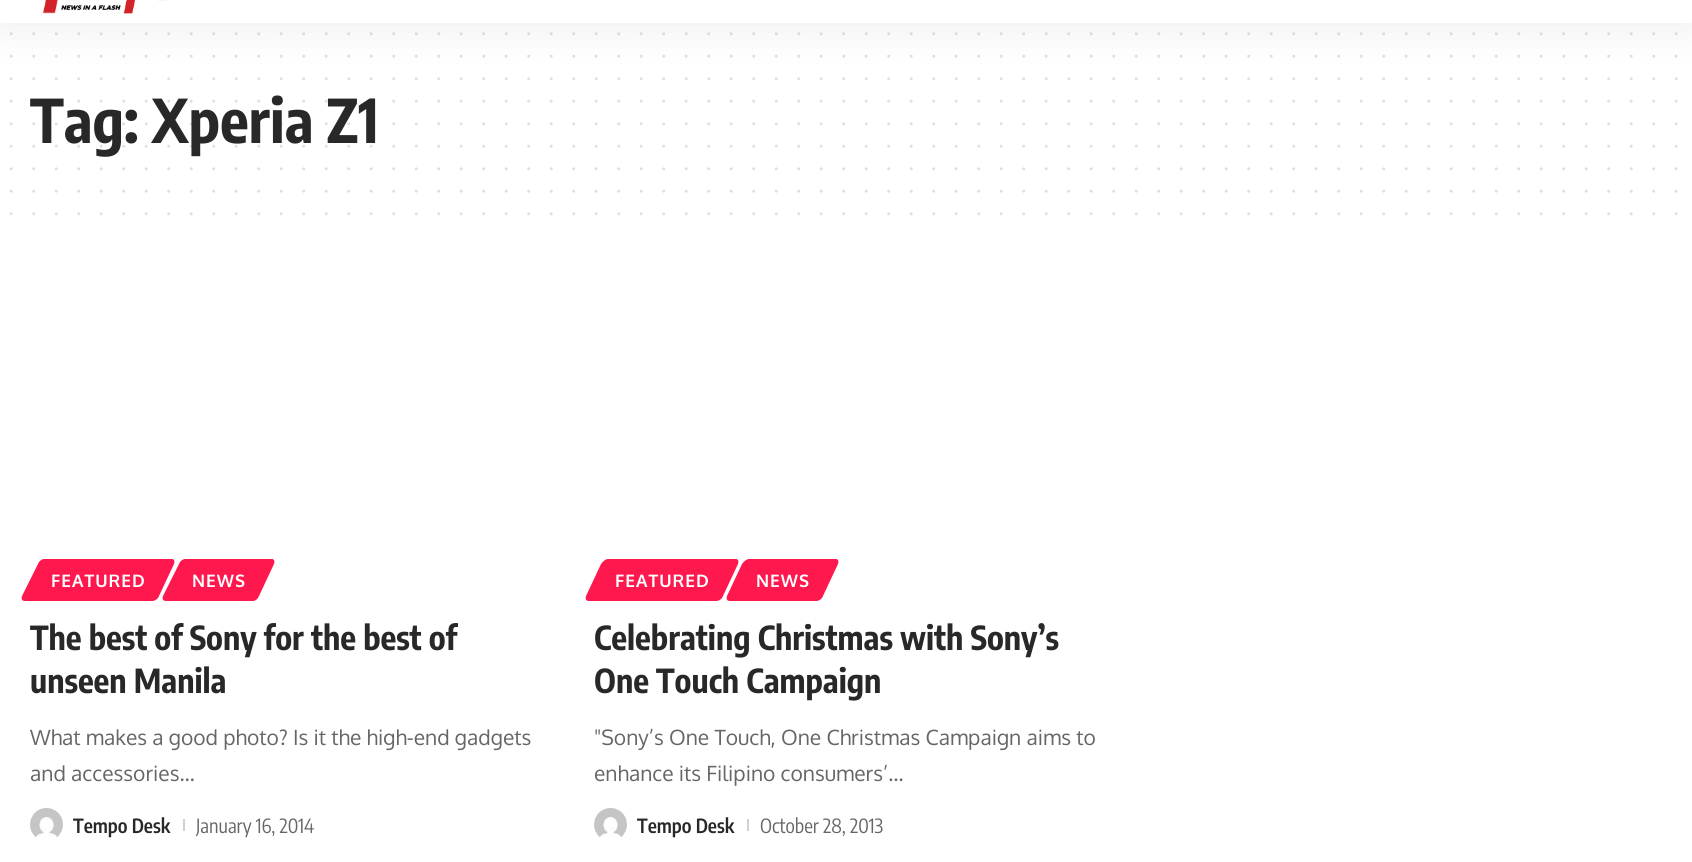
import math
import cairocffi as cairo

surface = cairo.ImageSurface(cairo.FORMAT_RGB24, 1692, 862)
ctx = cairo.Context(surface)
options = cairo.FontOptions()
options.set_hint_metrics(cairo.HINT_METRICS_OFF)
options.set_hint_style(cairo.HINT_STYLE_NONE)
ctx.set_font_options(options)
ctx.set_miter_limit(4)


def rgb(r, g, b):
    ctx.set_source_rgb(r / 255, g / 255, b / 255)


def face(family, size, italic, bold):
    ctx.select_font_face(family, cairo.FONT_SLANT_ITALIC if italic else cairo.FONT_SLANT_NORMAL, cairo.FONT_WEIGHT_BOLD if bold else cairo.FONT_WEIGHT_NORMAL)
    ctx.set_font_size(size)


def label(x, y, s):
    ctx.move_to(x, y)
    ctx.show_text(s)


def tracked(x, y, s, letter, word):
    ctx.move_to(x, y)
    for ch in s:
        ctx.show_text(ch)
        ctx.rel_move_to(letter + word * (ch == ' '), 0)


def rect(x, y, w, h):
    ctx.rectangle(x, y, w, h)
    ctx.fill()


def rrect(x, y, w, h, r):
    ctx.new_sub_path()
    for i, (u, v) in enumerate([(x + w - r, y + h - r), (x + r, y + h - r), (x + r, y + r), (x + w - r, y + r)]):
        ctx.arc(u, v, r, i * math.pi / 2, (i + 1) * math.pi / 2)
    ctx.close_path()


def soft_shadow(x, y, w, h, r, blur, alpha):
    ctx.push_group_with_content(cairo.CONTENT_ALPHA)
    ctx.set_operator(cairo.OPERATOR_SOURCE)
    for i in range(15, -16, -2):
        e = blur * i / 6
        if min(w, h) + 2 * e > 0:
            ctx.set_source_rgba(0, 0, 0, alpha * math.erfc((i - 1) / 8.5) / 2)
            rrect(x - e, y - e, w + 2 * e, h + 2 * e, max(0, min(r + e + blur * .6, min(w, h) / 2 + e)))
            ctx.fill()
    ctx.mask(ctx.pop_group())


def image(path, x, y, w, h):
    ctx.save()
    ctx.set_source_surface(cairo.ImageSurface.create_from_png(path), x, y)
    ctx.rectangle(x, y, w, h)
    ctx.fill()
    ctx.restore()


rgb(255, 255, 255)
ctx.paint()
ctx.new_path()
ctx.move_to(11.2, 33.8)
ctx.line_to(1676.6, 33.8)
rgb(223, 223, 223)
ctx.set_line_width(3)
ctx.set_line_cap(cairo.LINE_CAP_ROUND)
ctx.set_dash([0, 22.5])
ctx.stroke()
ctx.new_path()
ctx.move_to(11.2, 56.2)
ctx.line_to(1676.6, 56.2)
ctx.stroke()
ctx.new_path()
ctx.move_to(11.2, 78.8)
ctx.line_to(1676.6, 78.8)
ctx.stroke()
rgb(0, 0, 0)
soft_shadow(0, -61, 1692, 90, 0, 22.5, 0.07)
rgb(255, 255, 255)
rect(0, 0, 1692, 23)
image('image0.png', 42, 0, 125, 14)
face('Encode Sans Condensed', 60, 0, 1)
rgb(40, 40, 40)
label(30, 143, 'Tag: Xperia Z1')
ctx.new_path()
ctx.move_to(11.2, 101.2)
ctx.line_to(1676.6, 101.2)
ctx.set_source_rgba(0.157, 0.157, 0.157, 0.15)
ctx.stroke()
ctx.new_path()
ctx.move_to(11.2, 123.8)
ctx.line_to(1676.6, 123.8)
ctx.stroke()
ctx.new_path()
ctx.move_to(11.2, 146.2)
ctx.line_to(1676.6, 146.2)
ctx.stroke()
ctx.new_path()
ctx.move_to(11.2, 168.8)
ctx.line_to(1676.6, 168.8)
rgb(223, 223, 223)
ctx.stroke()
ctx.new_path()
ctx.move_to(11.2, 191.2)
ctx.line_to(1676.6, 191.2)
ctx.stroke()
ctx.new_path()
ctx.move_to(11.2, 213.8)
ctx.line_to(1676.6, 213.8)
ctx.stroke()
rgb(255, 24, 78)
ctx.new_path()
ctx.move_to(44, 559)
ctx.line_to(172, 559)
ctx.curve_to(174, 559, 175, 561, 174, 564)
ctx.line_to(159, 596)
ctx.curve_to(158, 599, 155, 601, 152, 601)
ctx.line_to(25, 601)
ctx.curve_to(22, 601, 21, 599, 22, 596)
ctx.line_to(38, 564)
ctx.curve_to(39, 561, 42, 559, 44, 559)
ctx.close_path()
ctx.fill()
face('Oxygen', 17.25, 0, 1)
rgb(255, 255, 255)
tracked(51, 587, 'FEATURED', 1, 0)
rgb(255, 24, 78)
ctx.new_path()
ctx.move_to(185, 559)
ctx.line_to(272, 559)
ctx.curve_to(274, 559, 275, 561, 274, 564)
ctx.line_to(259, 596)
ctx.curve_to(258, 599, 255, 601, 253, 601)
ctx.line_to(166, 601)
ctx.curve_to(163, 601, 162, 599, 163, 596)
ctx.line_to(179, 564)
ctx.curve_to(180, 561, 183, 559, 185, 559)
ctx.close_path()
ctx.fill()
rgb(255, 255, 255)
tracked(192, 587, 'NEWS', 1, 0)
face('Encode Sans Condensed', 33, 0, 1)
rgb(40, 40, 40)
label(30, 650, 'The best of Sony for the best of')
label(30, 693, 'unseen Manila')
face('Oxygen', 21, 0, 0)
rgb(102, 102, 102)
label(30, 745, 'What makes a good photo? Is it the high-end gadgets')
label(30, 781, 'and accessories…')
image('image1.png', 30, 808, 33, 29)
face('Encode Sans Condensed SemiBold', 19.5, 0, 0)
rgb(40, 40, 40)
label(73, 833, 'Tempo Desk')
rgb(209, 209, 209)
rect(183, 819, 2, 12)
face('Encode Sans Condensed', 19.5, 0, 0)
rgb(102, 102, 102)
label(196, 833, 'January 16, 2014')
rgb(255, 24, 78)
ctx.new_path()
ctx.move_to(608, 559)
ctx.line_to(736, 559)
ctx.curve_to(738, 559, 739, 561, 738, 564)
ctx.line_to(723, 596)
ctx.curve_to(722, 599, 719, 601, 716, 601)
ctx.line_to(589, 601)
ctx.curve_to(586, 601, 585, 599, 586, 596)
ctx.line_to(601, 564)
ctx.curve_to(603, 561, 606, 559, 608, 559)
ctx.close_path()
ctx.fill()
face('Oxygen', 17.25, 0, 1)
rgb(255, 255, 255)
tracked(615, 587, 'FEATURED', 1, 0)
rgb(255, 24, 78)
ctx.new_path()
ctx.move_to(749, 559)
ctx.line_to(836, 559)
ctx.curve_to(838, 559, 839, 561, 838, 564)
ctx.line_to(823, 596)
ctx.curve_to(822, 599, 819, 601, 816, 601)
ctx.line_to(730, 601)
ctx.curve_to(727, 601, 726, 599, 727, 596)
ctx.line_to(742, 564)
ctx.curve_to(744, 561, 747, 559, 749, 559)
ctx.close_path()
ctx.fill()
rgb(255, 255, 255)
tracked(756, 587, 'NEWS', 1, 0)
face('Encode Sans Condensed', 33, 0, 1)
rgb(40, 40, 40)
label(594, 650, 'Celebrating Christmas with Sony’s')
label(594, 693, 'One Touch Campaign')
face('Oxygen', 21, 0, 0)
rgb(102, 102, 102)
label(594, 745, '"Sony’s One Touch, One Christmas Campaign aims to')
label(594, 781, 'enhance its Filipino consumers’…')
image('image2.png', 594, 808, 33, 29)
face('Encode Sans Condensed SemiBold', 19.5, 0, 0)
rgb(40, 40, 40)
label(637, 833, 'Tempo Desk')
rgb(209, 209, 209)
rect(747, 819, 2, 12)
face('Encode Sans Condensed', 19.5, 0, 0)
rgb(102, 102, 102)
label(760, 833, 'October 28, 2013')
surface.write_to_png('render.png')
